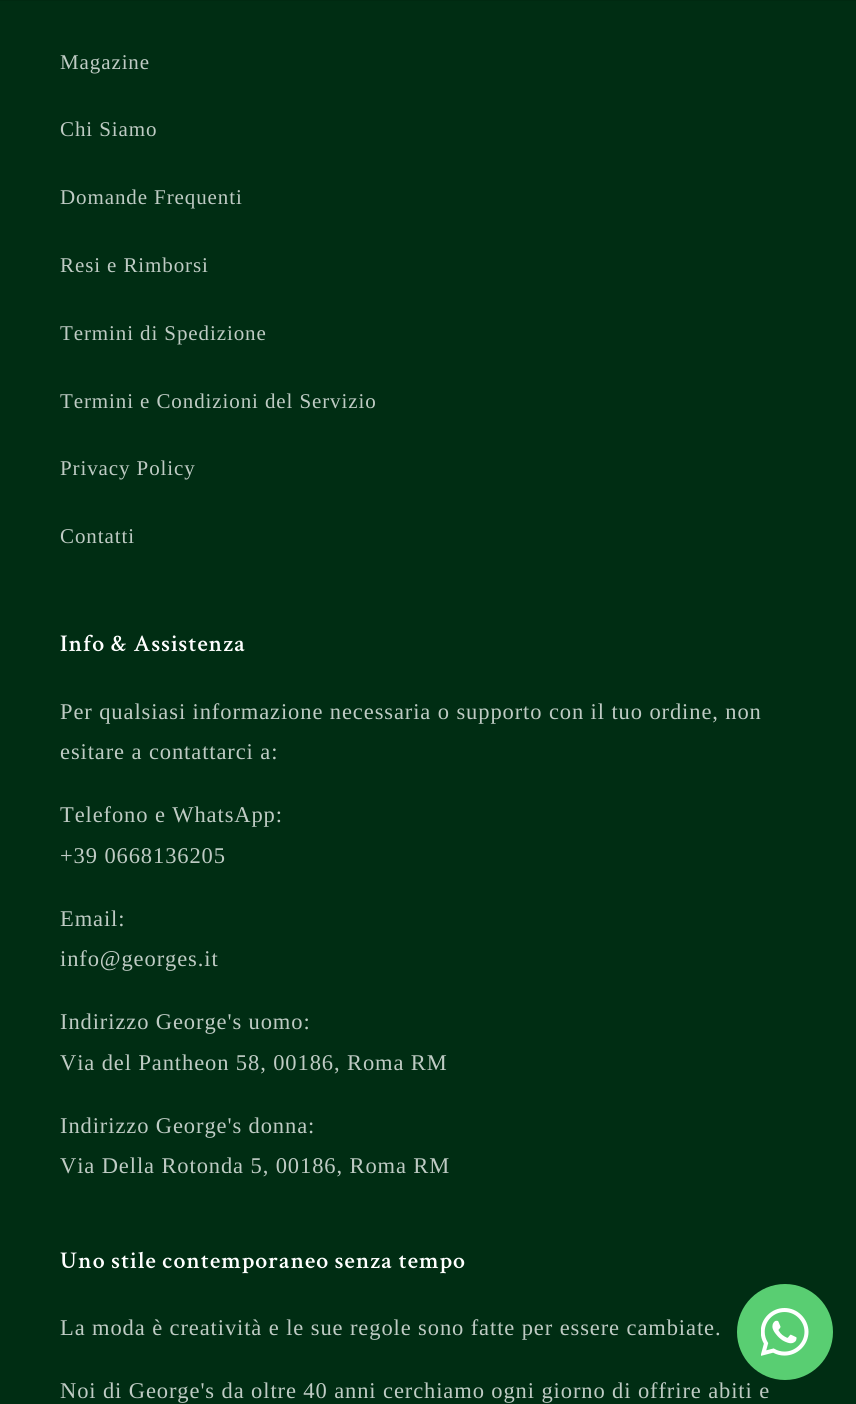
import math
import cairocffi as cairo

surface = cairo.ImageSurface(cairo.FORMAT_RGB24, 856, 1404)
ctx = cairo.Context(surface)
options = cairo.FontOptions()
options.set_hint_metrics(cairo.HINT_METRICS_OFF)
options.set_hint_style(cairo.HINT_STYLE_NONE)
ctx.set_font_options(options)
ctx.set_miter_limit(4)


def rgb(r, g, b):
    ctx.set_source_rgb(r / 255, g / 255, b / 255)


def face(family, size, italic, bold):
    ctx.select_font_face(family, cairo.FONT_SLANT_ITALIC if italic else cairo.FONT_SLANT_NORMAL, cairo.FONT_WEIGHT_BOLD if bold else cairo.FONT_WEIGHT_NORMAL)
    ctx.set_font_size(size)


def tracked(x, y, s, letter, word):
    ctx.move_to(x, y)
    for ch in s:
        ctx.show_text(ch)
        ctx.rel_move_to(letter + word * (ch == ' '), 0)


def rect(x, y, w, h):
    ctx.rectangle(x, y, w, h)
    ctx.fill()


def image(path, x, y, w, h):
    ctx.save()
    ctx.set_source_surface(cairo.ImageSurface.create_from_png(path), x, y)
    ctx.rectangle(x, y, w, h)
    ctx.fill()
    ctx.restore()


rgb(0, 45, 19)
ctx.paint()
rgb(0, 41, 17)
rect(0, 0, 856, 1)
face('Liberation Serif', 21, 0, 0)
rgb(191, 203, 196)
tracked(60, 69, 'Magazine', 0.9, 0)
tracked(60, 136, 'Chi Siamo', 0.9, 0)
tracked(60, 204, 'Domande Frequenti', 0.9, 0)
tracked(60, 272, 'Resi e Rimborsi', 0.9, 0)
tracked(60, 340, 'Termini di Spedizione', 0.9, 0)
tracked(60, 408, 'Termini e Condizioni del Servizio', 0.9, 0)
tracked(60, 475, 'Privacy Policy', 0.9, 0)
tracked(60, 543, 'Contatti', 0.9, 0)
face('Crimson Text SemiBold', 24, 0, 0)
rgb(255, 255, 255)
tracked(60, 651, 'Info & Assistenza', 0.9, 0)
face('Liberation Serif', 22.5, 0, 0)
rgb(191, 203, 196)
tracked(60, 719, 'Per qualsiasi informazione necessaria o supporto con il tuo ordine, non', 0.9, 0)
tracked(60, 759, 'esitare a contattarci a:', 0.9, 0)
tracked(60, 822, 'Telefono e WhatsApp:', 0.9, 0)
tracked(60, 863, '+39 0668136205', 0.9, 0)
tracked(60, 926, 'Email:', 0.9, 0)
tracked(60, 966, 'info@georges.it', 0.9, 0)
tracked(60, 1029, 'Indirizzo George\'s uomo:', 0.9, 0)
tracked(60, 1070, 'Via del Pantheon 58, 00186, Roma RM', 0.9, 0)
tracked(60, 1133, 'Indirizzo George\'s donna:', 0.9, 0)
tracked(60, 1173, 'Via Della Rotonda 5, 00186, Roma RM', 0.9, 0)
face('Crimson Text SemiBold', 24, 0, 0)
rgb(255, 255, 255)
tracked(60, 1268, 'Uno stile contemporaneo senza tempo', 0.9, 0)
face('Liberation Serif', 22.5, 0, 0)
rgb(191, 203, 196)
tracked(60, 1335, 'La moda è creatività e le sue regole sono fatte per essere cambiate.', 0.9, 0)
tracked(60, 1398, 'Noi di George\'s da oltre 40 anni cerchiamo ogni giorno di offrire abiti e', 0.9, 0)
rgb(89, 206, 114)
ctx.new_path()
ctx.arc(785, 1332, 48, 0, 2 * math.pi)
ctx.fill()
image('image0.png', 761, 1308, 48, 48)
surface.write_to_png('render.png')
